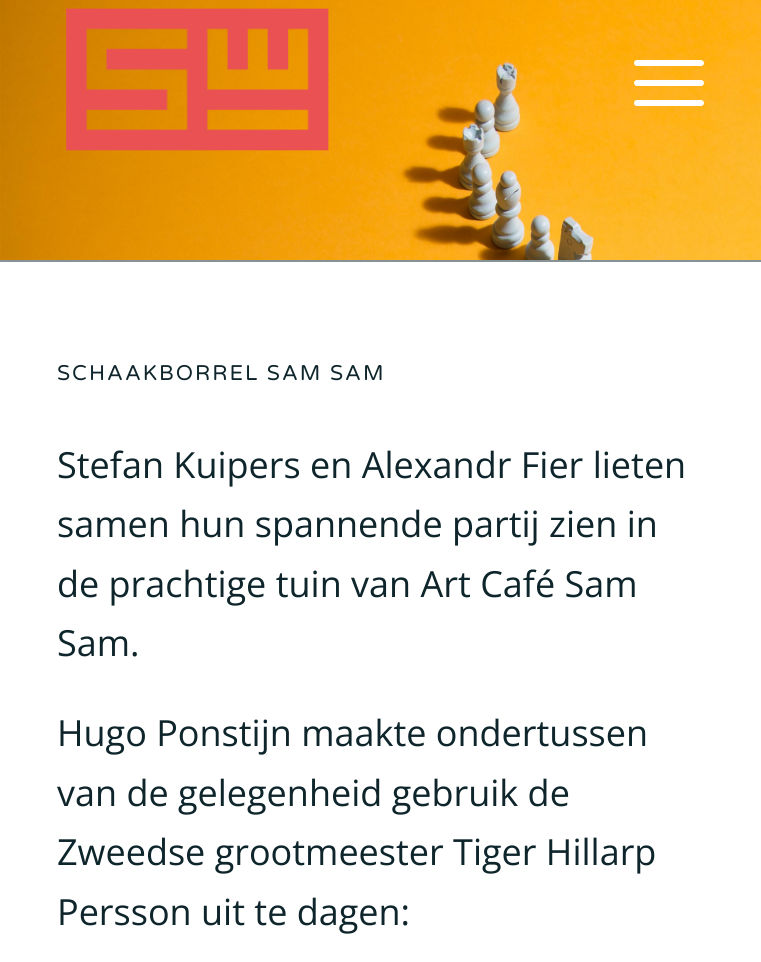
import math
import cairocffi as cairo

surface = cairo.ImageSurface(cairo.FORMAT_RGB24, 761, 962)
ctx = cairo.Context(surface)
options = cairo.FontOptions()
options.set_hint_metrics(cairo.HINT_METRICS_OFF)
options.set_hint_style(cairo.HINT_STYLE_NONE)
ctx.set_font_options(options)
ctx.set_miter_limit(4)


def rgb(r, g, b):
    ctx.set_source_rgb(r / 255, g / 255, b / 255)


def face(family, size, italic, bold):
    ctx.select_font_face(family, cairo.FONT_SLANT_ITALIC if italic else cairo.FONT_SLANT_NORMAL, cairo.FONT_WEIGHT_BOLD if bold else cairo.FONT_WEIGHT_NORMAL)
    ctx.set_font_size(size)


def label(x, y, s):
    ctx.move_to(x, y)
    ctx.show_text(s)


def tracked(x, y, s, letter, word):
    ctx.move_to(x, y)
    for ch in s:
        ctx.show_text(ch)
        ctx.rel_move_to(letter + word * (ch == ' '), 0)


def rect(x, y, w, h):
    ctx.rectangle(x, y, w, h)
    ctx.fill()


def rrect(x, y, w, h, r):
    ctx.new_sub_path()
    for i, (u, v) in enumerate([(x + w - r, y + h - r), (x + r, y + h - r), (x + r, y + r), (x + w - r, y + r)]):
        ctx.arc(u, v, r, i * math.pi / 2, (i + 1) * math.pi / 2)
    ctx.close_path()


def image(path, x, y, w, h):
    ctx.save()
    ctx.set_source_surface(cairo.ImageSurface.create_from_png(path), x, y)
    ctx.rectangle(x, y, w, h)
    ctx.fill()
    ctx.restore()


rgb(255, 255, 255)
ctx.paint()
image('image1.png', 0, 0, 761, 260)
image('image0.png', 66, 8, 263, 143)
rgb(255, 255, 255)
rrect(634, 80, 70, 6, 3)
ctx.fill()
rrect(634, 60, 70, 6, 3)
ctx.fill()
rrect(634, 100, 70, 6, 3)
ctx.fill()
rgb(134, 146, 149)
rect(0, 260, 761, 2)
face('Varela Round', 21.3, 0, 0)
rgb(14, 37, 43)
tracked(57, 380, 'SCHAAKBORREL SAM SAM', 2, 0)
face('Open Sans', 36, 0, 0)
label(57, 478, 'Stefan Kuipers en Alexandr Fier lieten')
label(57, 537, 'samen hun spannende partij zien in')
label(57, 597, 'de prachtige tuin van Art Café Sam')
label(57, 656, 'Sam.')
label(57, 746, 'Hugo Ponstijn maakte ondertussen')
label(57, 806, 'van de gelegenheid gebruik de')
label(57, 865, 'Zweedse grootmeester Tiger Hillarp')
label(57, 925, 'Persson uit te dagen:')
surface.write_to_png('render.png')
